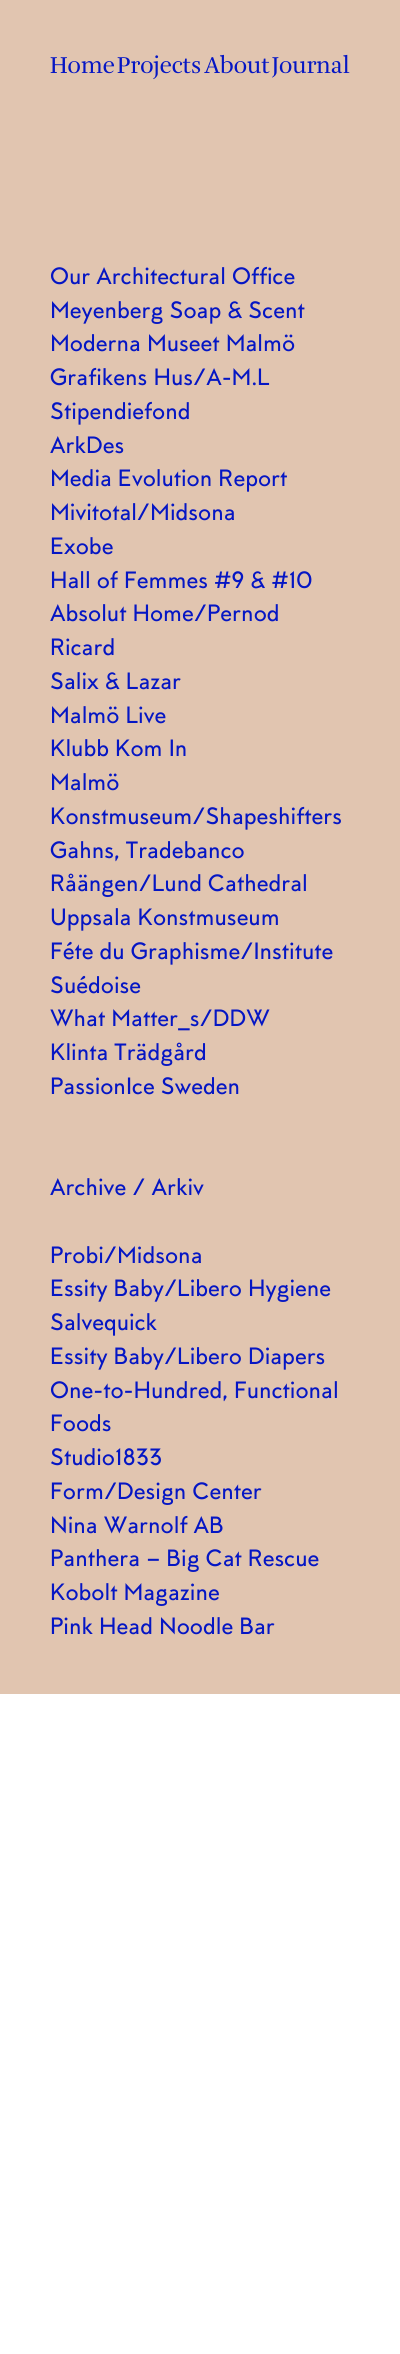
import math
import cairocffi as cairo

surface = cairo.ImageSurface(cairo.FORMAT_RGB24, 400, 2354)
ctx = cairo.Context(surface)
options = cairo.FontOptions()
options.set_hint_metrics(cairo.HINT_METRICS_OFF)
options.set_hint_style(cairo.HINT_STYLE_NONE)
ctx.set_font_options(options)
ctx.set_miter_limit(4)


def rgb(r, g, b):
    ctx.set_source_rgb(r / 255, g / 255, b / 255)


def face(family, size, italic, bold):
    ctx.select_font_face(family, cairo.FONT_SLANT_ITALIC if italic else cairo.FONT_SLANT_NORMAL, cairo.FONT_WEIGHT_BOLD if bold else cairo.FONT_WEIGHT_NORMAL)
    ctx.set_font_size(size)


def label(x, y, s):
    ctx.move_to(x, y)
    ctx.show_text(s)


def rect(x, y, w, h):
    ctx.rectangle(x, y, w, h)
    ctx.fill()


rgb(255, 255, 255)
ctx.paint()
rgb(225, 197, 176)
rect(0, 0, 400, 1694)
face('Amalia', 23.75, 0, 0)
rgb(5, 22, 196)
label(50, 73, 'Home')
label(117, 73, 'Projects')
label(204, 73, 'About')
label(272, 73, 'Journal')
face('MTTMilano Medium', 23.75, 0, 0)
label(50, 284, 'Our Architectural Office')
label(50, 318, 'Meyenberg Soap & Scent')
label(50, 351, 'Moderna Museet Malmö')
label(50, 385, 'Grafikens Hus/A-M.L')
label(50, 419, 'Stipendiefond')
label(50, 453, 'ArkDes')
label(50, 486, 'Media Evolution Report')
label(50, 520, 'Mivitotal/Midsona')
label(50, 554, 'Exobe')
label(50, 588, 'Hall of Femmes #9 & #10')
label(50, 621, 'Absolut Home/Pernod')
label(50, 655, 'Ricard')
label(50, 689, 'Salix & Lazar')
label(50, 723, 'Malmö Live')
label(50, 756, 'Klubb Kom In')
label(50, 790, 'Malmö')
label(50, 824, 'Konstmuseum/Shapeshifters')
label(50, 858, 'Gahns, Tradebanco')
label(50, 891, 'Råängen/Lund Cathedral')
label(50, 925, 'Uppsala Konstmuseum')
label(50, 959, 'Féte du Graphisme/Institute')
label(50, 993, 'Suédoise')
label(50, 1026, 'What Matter_s/DDW')
label(50, 1060, 'Klinta Trädgård')
label(50, 1094, 'PassionIce Sweden')
label(50, 1195, 'Archive / Arkiv')
label(50, 1263, 'Probi/Midsona')
label(50, 1296, 'Essity Baby/Libero Hygiene')
label(50, 1330, 'Salvequick')
label(50, 1364, 'Essity Baby/Libero Diapers')
label(50, 1398, 'One-to-Hundred, Functional')
label(50, 1431, 'Foods')
label(50, 1465, 'Studio1833')
label(50, 1499, 'Form/Design Center')
label(50, 1533, 'Nina Warnolf AB')
label(50, 1566, 'Panthera – Big Cat Rescue')
label(50, 1600, 'Kobolt Magazine')
label(50, 1634, 'Pink Head Noodle Bar')
surface.write_to_png('render.png')
